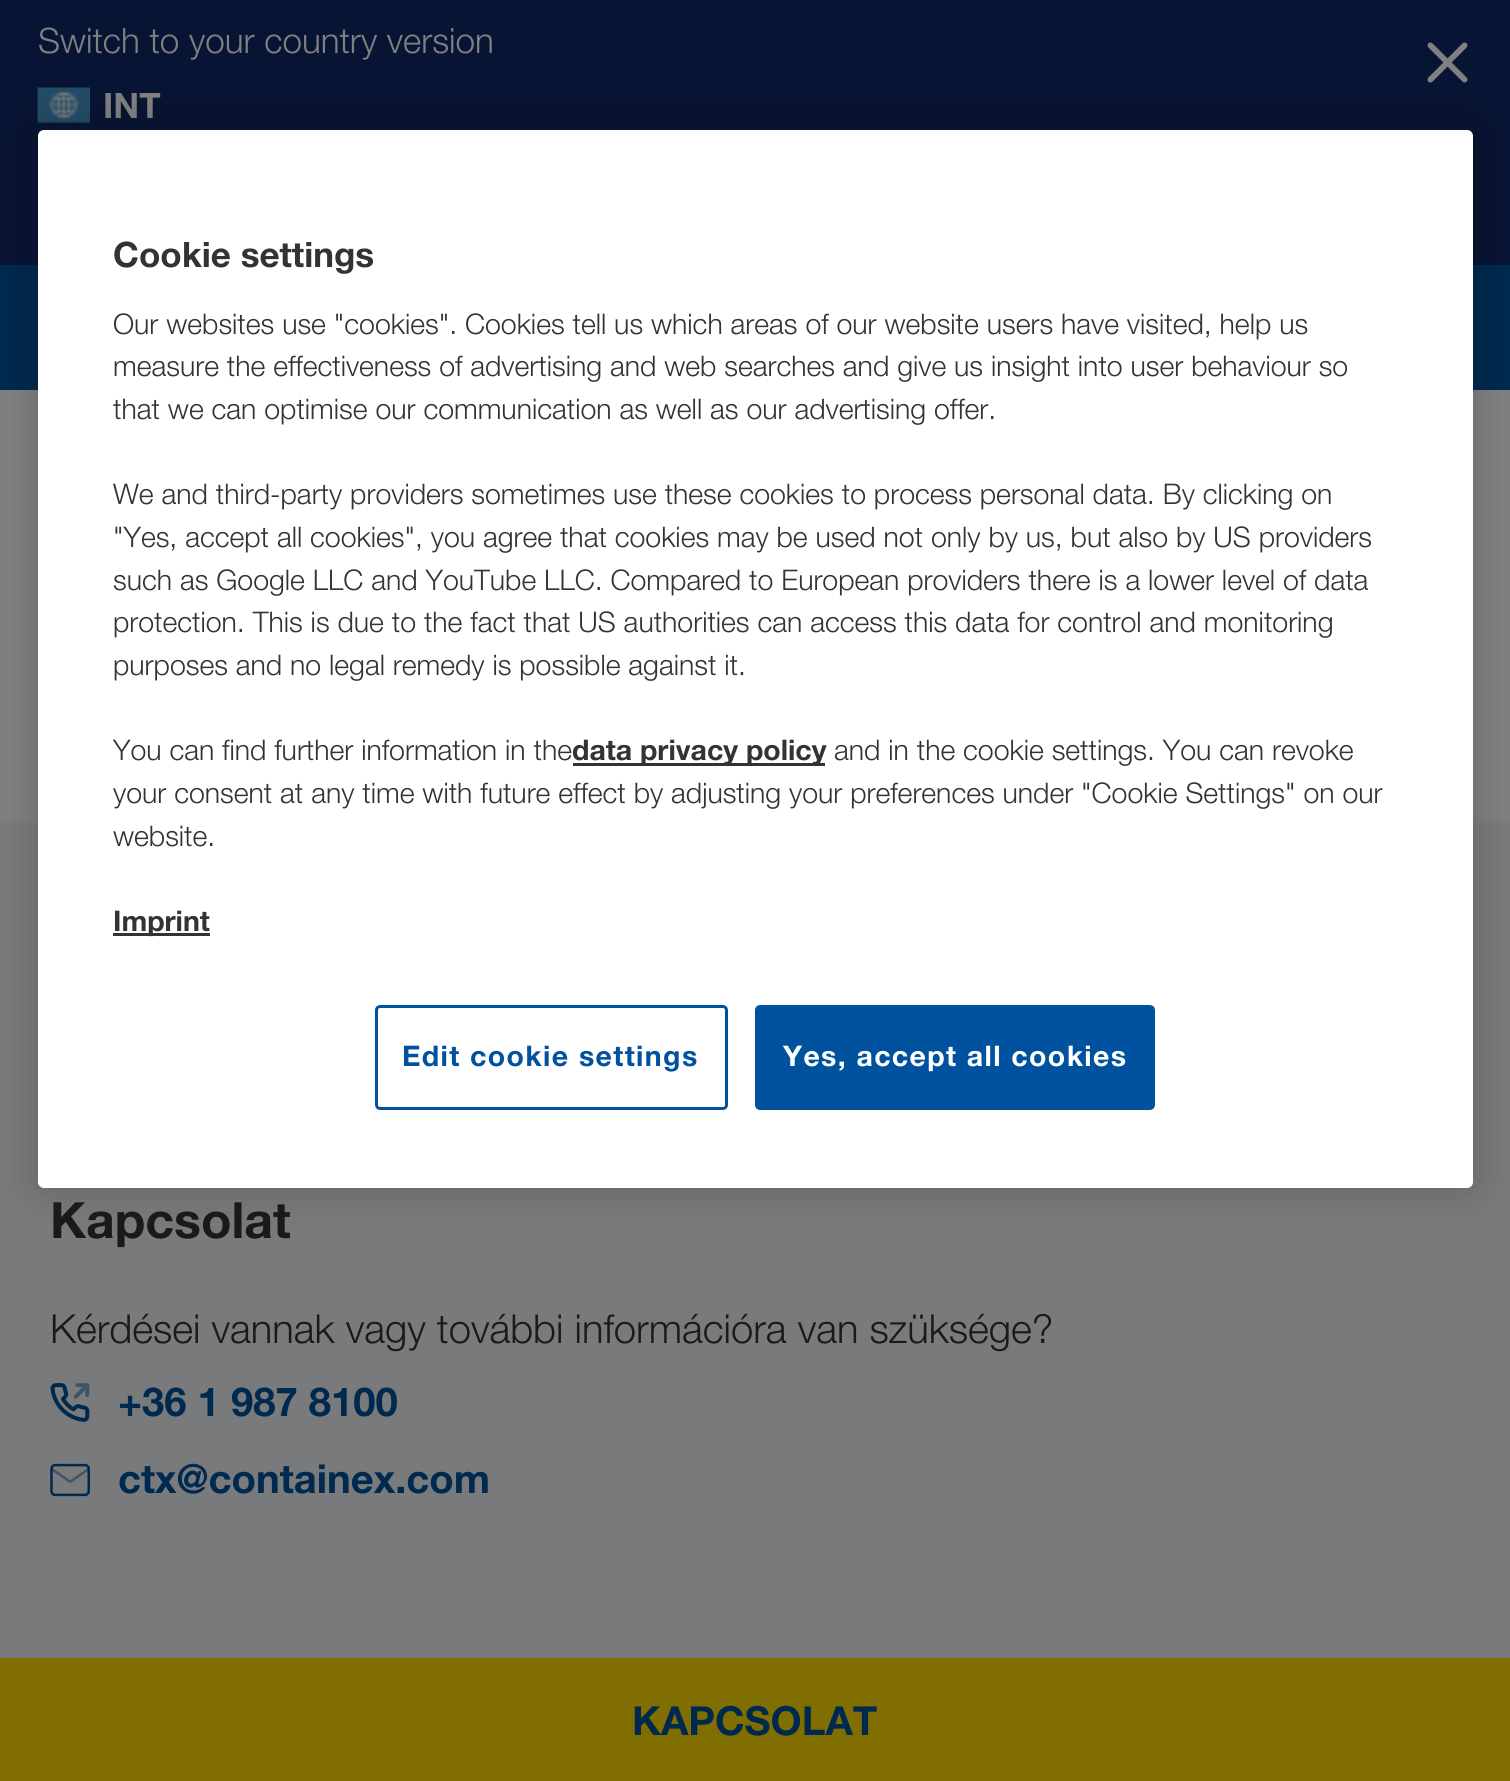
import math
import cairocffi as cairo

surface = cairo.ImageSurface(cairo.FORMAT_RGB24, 1510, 1781)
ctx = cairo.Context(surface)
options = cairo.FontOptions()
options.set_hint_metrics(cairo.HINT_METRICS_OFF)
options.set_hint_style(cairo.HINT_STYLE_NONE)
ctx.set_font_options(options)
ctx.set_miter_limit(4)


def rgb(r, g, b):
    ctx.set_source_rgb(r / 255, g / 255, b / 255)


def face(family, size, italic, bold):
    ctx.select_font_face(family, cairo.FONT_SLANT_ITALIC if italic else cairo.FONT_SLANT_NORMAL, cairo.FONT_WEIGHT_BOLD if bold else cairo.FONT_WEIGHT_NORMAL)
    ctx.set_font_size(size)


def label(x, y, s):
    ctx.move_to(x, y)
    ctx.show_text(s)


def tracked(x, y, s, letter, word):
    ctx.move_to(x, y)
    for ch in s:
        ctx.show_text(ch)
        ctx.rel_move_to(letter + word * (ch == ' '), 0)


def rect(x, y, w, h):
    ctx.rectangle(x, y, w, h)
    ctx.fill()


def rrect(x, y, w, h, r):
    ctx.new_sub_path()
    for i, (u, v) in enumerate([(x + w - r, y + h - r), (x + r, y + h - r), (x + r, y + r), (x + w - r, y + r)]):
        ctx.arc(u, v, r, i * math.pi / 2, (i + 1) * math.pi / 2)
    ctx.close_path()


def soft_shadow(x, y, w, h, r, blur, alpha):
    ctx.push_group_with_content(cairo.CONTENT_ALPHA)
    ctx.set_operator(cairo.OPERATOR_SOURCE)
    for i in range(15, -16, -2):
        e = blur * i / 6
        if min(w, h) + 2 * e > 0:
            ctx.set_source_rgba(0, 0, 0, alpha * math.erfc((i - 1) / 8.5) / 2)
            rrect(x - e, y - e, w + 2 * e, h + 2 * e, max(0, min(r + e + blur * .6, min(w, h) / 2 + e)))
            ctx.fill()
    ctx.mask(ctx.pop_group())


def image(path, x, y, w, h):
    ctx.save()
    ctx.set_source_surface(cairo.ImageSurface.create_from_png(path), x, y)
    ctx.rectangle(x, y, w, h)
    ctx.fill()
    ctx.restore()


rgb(128, 128, 128)
ctx.paint()
rgb(8, 20, 51)
rect(0, 0, 1510, 265)
face('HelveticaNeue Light', 35, 0, 0)
rgb(128, 128, 128)
label(38, 53, 'Switch to your country version')
image('image0.png', 37, 87, 53, 37)
face('HelveticaNeue', 35, 0, 1)
label(103, 118, 'INT')
image('image1.png', 1427, 42, 41, 41)
rgb(0, 41, 79)
rect(0, 265, 1510, 125)
rgb(121, 122, 123)
rect(0, 823, 1510, 835)
rgb(0, 0, 0)
soft_shadow(38, 130, 1435, 1058, 6, 22.5, 0.2)
rgb(255, 255, 255)
rrect(38, 130, 1435, 1058, 6)
ctx.fill()
rgb(51, 51, 51)
label(113, 267, 'Cookie settings')
face('HelveticaNeue Light', 28.45, 0, 0)
label(113, 334, 'Our websites use "cookies". Cookies tell us which areas of our website users have visited, help us')
label(113, 376, 'measure the effectiveness of advertising and web searches and give us insight into user behaviour so')
label(113, 419, 'that we can optimise our communication as well as our advertising offer.')
label(113, 504, 'We and third-party providers sometimes use these cookies to process personal data. By clicking on')
label(113, 547, '"Yes, accept all cookies", you agree that cookies may be used not only by us, but also by US providers')
label(113, 590, 'such as Google LLC and YouTube LLC. Compared to European providers there is a lower level of data')
label(113, 632, 'protection. This is due to the fact that US authorities can access this data for control and monitoring')
label(113, 675, 'purposes and no legal remedy is possible against it.')
label(113, 760, 'You can find further information in the')
rect(573, 763, 252, 3)
face('HelveticaNeue', 28.45, 0, 1)
label(572, 760, 'data privacy policy')
face('HelveticaNeue Light', 28.45, 0, 0)
label(834, 760, 'and in the cookie settings. You can revoke')
label(113, 803, 'your consent at any time with future effect by adjusting your preferences under "Cookie Settings" on our')
label(113, 846, 'website.')
rect(113, 933, 97, 3)
face('HelveticaNeue', 28.45, 0, 1)
label(113, 931, 'Imprint')
rrect(376.5, 1006.5, 350, 102, 3.5)
rgb(0, 82, 158)
ctx.set_line_width(3)
ctx.stroke()
tracked(402, 1066, 'Edit cookie settings', 1.4, 0)
rrect(756.5, 1006.5, 397, 102, 3.5)
ctx.fill_preserve()
ctx.stroke()
rgb(255, 255, 255)
tracked(783, 1066, 'Yes, accept all cookies', 1.4, 0)
face('HelveticaNeue', 50, 0, 1)
rgb(26, 26, 26)
label(50, 1238, 'Kapcsolat')
face('HelveticaNeue Light', 40, 0, 0)
label(50, 1343, 'Kérdései vannak vagy további információra van szüksége?')
image('image2.png', 50, 1383, 40, 39)
face('HelveticaNeue', 40, 0, 1)
rgb(0, 41, 79)
label(118, 1416, '+36 1 987 8100')
image('image3.png', 50, 1463, 40, 34)
label(118, 1493, 'ctx@containex.com')
rgb(128, 111, 0)
rect(0, 1658, 1510, 123)
rgb(0, 41, 79)
label(632, 1735, 'KAPCSOLAT')
surface.write_to_png('render.png')
